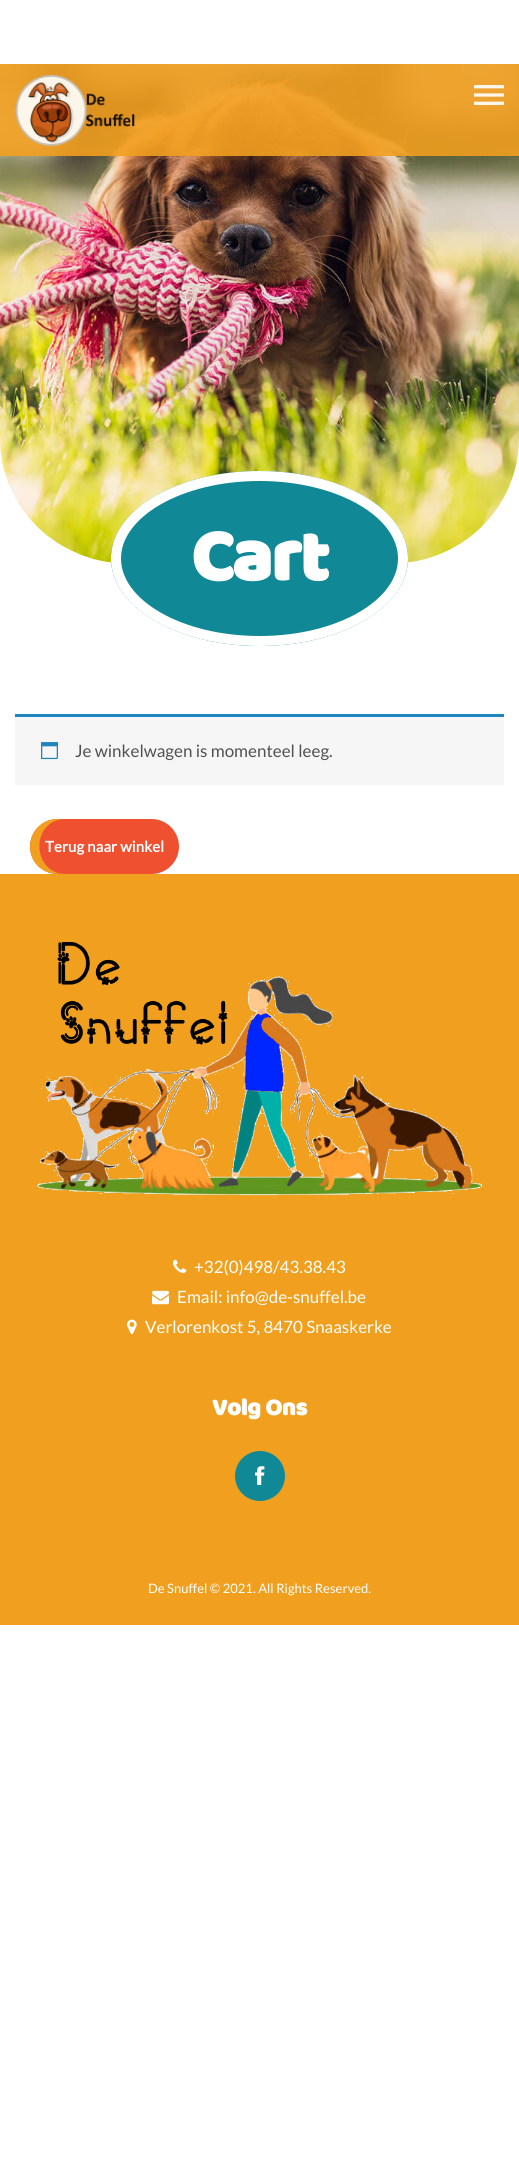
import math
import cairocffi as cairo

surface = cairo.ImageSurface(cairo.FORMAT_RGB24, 519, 2175)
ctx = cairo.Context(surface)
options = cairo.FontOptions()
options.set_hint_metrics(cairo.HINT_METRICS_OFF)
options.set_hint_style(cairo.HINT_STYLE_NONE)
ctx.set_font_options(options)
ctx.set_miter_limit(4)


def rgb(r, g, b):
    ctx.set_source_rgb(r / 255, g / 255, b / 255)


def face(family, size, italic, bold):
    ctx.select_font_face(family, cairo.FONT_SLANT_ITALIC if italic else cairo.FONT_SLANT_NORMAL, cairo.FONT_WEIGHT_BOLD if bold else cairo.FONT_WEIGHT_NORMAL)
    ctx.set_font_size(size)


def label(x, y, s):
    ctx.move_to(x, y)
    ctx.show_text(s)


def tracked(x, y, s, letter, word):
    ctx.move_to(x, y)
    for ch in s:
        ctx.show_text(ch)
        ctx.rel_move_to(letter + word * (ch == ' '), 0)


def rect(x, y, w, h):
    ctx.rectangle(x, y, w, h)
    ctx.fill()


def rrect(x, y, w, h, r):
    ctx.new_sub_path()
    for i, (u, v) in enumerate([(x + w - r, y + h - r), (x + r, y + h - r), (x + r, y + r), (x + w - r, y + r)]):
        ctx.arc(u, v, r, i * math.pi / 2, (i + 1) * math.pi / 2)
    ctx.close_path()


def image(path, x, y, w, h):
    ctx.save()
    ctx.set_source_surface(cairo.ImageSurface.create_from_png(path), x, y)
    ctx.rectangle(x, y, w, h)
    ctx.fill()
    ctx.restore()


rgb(255, 255, 255)
ctx.paint()
image('image2.png', 0, 64, 519, 499)
ctx.set_source_rgba(0.945, 0.624, 0.122, 0.9)
rect(0, 64, 519, 92)
image('image0.png', 15, 75, 120, 71)
image('image1.png', 474, 85, 30, 20)
rgb(16, 136, 150)
ctx.new_path()
ctx.move_to(259.5, 471)
ctx.curve_to(341.5, 471, 408, 510, 408, 558.5)
ctx.curve_to(408, 607, 341.5, 646, 259.5, 646)
ctx.curve_to(177.5, 646, 111, 607, 111, 558.5)
ctx.curve_to(111, 510, 177.5, 471, 259.5, 471)
ctx.close_path()
ctx.fill()
ctx.new_path()
ctx.move_to(259.5, 476)
ctx.curve_to(339, 476, 403, 513, 403, 558.5)
ctx.curve_to(403, 604, 339, 641, 259.5, 641)
ctx.curve_to(180, 641, 116, 604, 116, 558.5)
ctx.curve_to(116, 513, 180, 476, 259.5, 476)
ctx.close_path()
rgb(255, 255, 255)
ctx.set_line_width(10)
ctx.stroke()
face('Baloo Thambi', 75, 0, 1)
tracked(191, 580, 'Cart', -2, 0)
rgb(247, 246, 247)
rect(15, 717, 489, 68)
rgb(30, 133, 190)
rect(15, 714, 489, 3)
image('image3.png', 41, 742, 17, 18)
face('Lato', 17, 0, 0)
rgb(81, 81, 81)
label(75, 757, 'Je winkelwagen is momenteel leeg.')
rgb(239, 80, 48)
rrect(30, 819, 149, 55, 27.5)
ctx.fill()
rgb(241, 159, 31)
ctx.new_path()
ctx.move_to(58, 819)
ctx.curve_to(28, 819, 19, 860, 47, 872)
ctx.curve_to(53, 874, 60, 874, 66, 874)
ctx.curve_to(31, 874, 30, 819, 66, 819)
ctx.close_path()
ctx.fill()
face('Lato', 15, 0, 1)
rgb(255, 255, 255)
tracked(45, 852, 'Terug naar winkel', 0.1, 0)
rgb(241, 159, 31)
rect(0, 874, 519, 751)
image('image4.png', 37, 941, 446, 255)
image('image5.png', 173, 1259, 14, 14)
face('Lato', 17, 0, 0)
rgb(255, 255, 255)
label(194, 1273, '+32(0)498/43.38.43')
image('image6.png', 152, 1290, 17, 15)
label(177, 1303, 'Email: info@de-snuffel.be')
image('image7.png', 127, 1319, 10, 16)
label(145, 1333, 'Verlorenkost 5, 8470 Snaaskerke')
face('Baloo Thambi', 24, 0, 1)
tracked(212, 1415, 'Volg Ons', -0.25, 0)
rgb(16, 136, 150)
ctx.new_path()
ctx.arc(260, 1476, 25, 0, 2 * math.pi)
ctx.fill()
image('image8.png', 255, 1466, 10, 19)
face('Lato', 13, 0, 0)
rgb(255, 255, 255)
label(148, 1593, 'De Snuffel © 2021. All Rights Reserved.')
surface.write_to_png('render.png')
